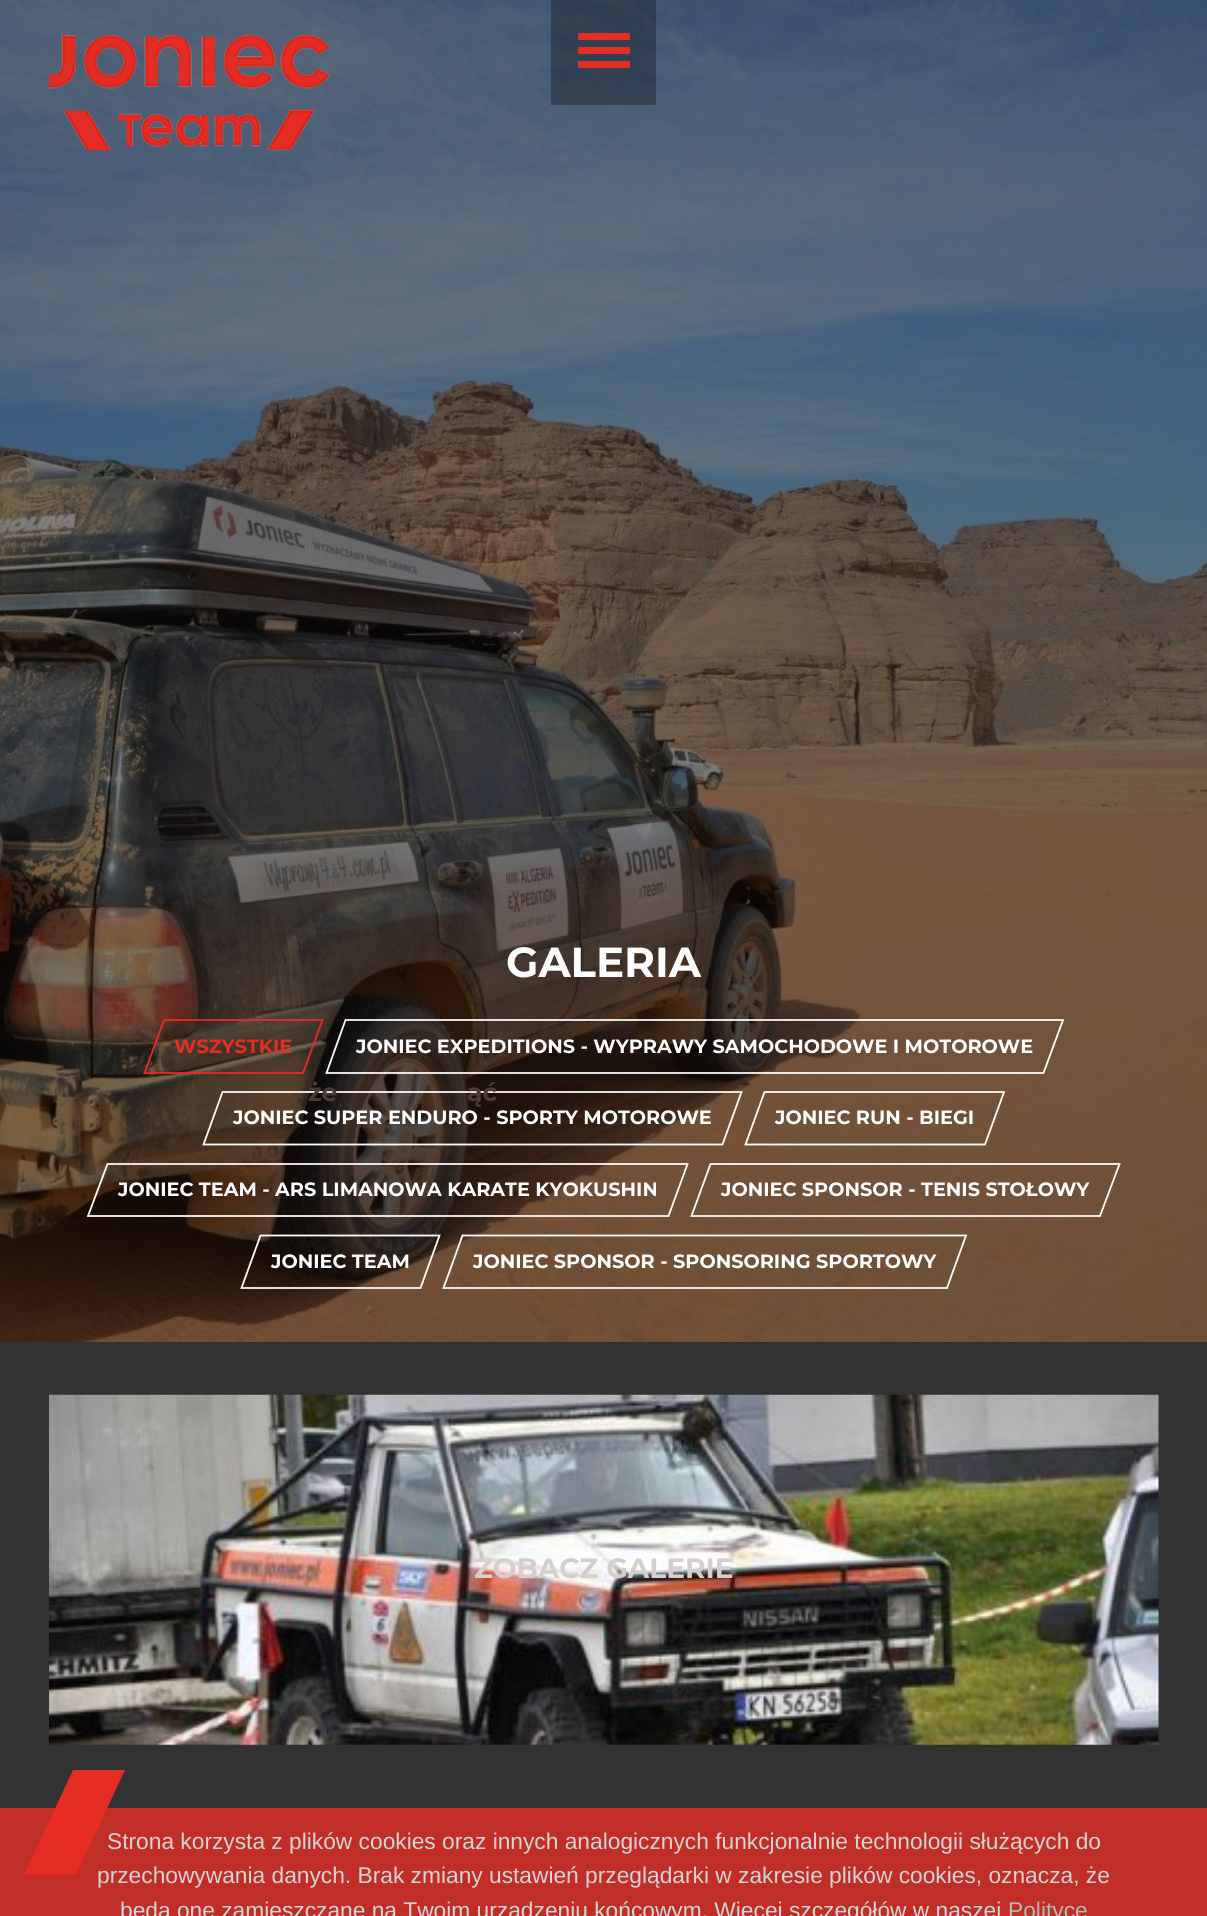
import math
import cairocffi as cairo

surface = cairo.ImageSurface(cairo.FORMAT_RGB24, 1207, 1916)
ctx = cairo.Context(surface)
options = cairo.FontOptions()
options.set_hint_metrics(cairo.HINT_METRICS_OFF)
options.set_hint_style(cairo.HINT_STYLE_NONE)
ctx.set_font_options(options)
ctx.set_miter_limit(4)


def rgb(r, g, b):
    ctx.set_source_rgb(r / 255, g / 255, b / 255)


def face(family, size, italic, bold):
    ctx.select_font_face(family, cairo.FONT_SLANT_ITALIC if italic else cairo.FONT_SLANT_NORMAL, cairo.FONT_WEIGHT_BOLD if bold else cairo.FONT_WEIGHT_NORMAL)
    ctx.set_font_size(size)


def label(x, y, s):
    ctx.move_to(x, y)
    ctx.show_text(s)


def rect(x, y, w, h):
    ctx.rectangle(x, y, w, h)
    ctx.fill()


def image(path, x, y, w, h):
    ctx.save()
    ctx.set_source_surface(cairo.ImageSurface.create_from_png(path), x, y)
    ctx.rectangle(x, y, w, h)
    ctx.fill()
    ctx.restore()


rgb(255, 255, 255)
ctx.paint()
image('image1.png', 0, 0, 1207, 1342)
image('image0.png', 49, 35, 280, 116)
ctx.set_source_rgba(0, 0, 0, 0.3)
rect(551, 0, 105, 105)
rgb(228, 45, 37)
rect(578, 47, 52, 7)
rect(578, 33, 52, 7)
rect(578, 61, 52, 7)
face('Montserrat', 42, 0, 1)
rgb(255, 255, 255)
label(506, 977, 'GALERIA')
ctx.new_path()
ctx.move_to(164, 1020)
ctx.line_to(322.5, 1020)
ctx.line_to(303, 1073)
ctx.line_to(144.5, 1073)
ctx.close_path()
rgb(228, 45, 37)
ctx.set_line_width(1.8)
ctx.stroke()
face('Montserrat', 19.25, 0, 1)
label(174, 1053, 'WSZYSTKIE')
ctx.new_path()
ctx.move_to(345.5, 1020)
ctx.line_to(1063, 1020)
ctx.line_to(1043.5, 1073)
ctx.line_to(326.5, 1073)
ctx.close_path()
rgb(255, 255, 255)
ctx.stroke()
label(356, 1053, 'JONIEC EXPEDITIONS - WYPRAWY SAMOCHODOWE I MOTOROWE')
ctx.new_path()
ctx.move_to(222.5, 1092)
ctx.line_to(741.5, 1092)
ctx.line_to(722.5, 1144.5)
ctx.line_to(203.5, 1144.5)
ctx.close_path()
ctx.stroke()
label(233, 1124, 'JONIEC SUPER ENDURO - SPORTY MOTOROWE')
ctx.new_path()
ctx.move_to(764.5, 1092)
ctx.line_to(1004, 1092)
ctx.line_to(985, 1144.5)
ctx.line_to(745.5, 1144.5)
ctx.close_path()
ctx.stroke()
label(775, 1124, 'JONIEC RUN - BIEGI')
ctx.new_path()
ctx.move_to(107.5, 1164)
ctx.line_to(687.5, 1164)
ctx.line_to(668.5, 1216)
ctx.line_to(88, 1216)
ctx.close_path()
ctx.stroke()
label(118, 1196, 'JONIEC TEAM - ARS LIMANOWA KARATE KYOKUSHIN')
ctx.new_path()
ctx.move_to(710.5, 1164)
ctx.line_to(1119.5, 1164)
ctx.line_to(1100, 1216)
ctx.line_to(691.5, 1216)
ctx.close_path()
ctx.stroke()
label(721, 1196, 'JONIEC SPONSOR - TENIS STOŁOWY')
ctx.new_path()
ctx.move_to(260.5, 1235.5)
ctx.line_to(439.5, 1235.5)
ctx.line_to(420.5, 1288)
ctx.line_to(241.5, 1288)
ctx.close_path()
ctx.stroke()
label(271, 1268, 'JONIEC TEAM')
ctx.new_path()
ctx.move_to(462.5, 1235.5)
ctx.line_to(966, 1235.5)
ctx.line_to(947, 1288)
ctx.line_to(443.5, 1288)
ctx.close_path()
ctx.stroke()
label(473, 1268, 'JONIEC SPONSOR - SPONSORING SPORTOWY')
face('Montserrat', 25, 0, 1)
rgb(74, 61, 52)
label(308, 1101, 'że')
label(467, 1101, 'ąć')
rgb(50, 50, 50)
rect(0, 1342, 1207, 574)
image('image2.png', 49, 1394, 1110, 351)
face('Montserrat', 28, 0, 1)
rgb(213, 206, 205)
label(474, 1578, 'ZOBACZ GALERIE')
rgb(228, 45, 37)
ctx.new_path()
ctx.move_to(73, 1770)
ctx.line_to(125, 1770)
ctx.line_to(76, 1875)
ctx.line_to(24, 1875)
ctx.close_path()
ctx.fill()
ctx.set_source_rgba(0.894, 0.176, 0.145, 0.8)
rect(0, 1808, 1207, 108)
face('Liberation Sans', 22.75, 0, 0)
rgb(214, 214, 214)
label(107, 1849, 'Strona korzysta z plików cookies oraz innych analogicznych funkcjonalnie technologii służących do')
label(97, 1883, 'przechowywania danych. Brak zmiany ustawień przeglądarki w zakresie plików cookies, oznacza, że')
label(120, 1918, 'będą one zamieszczane na Twoim urządzeniu końcowym. Więcej szczegółów w naszej')
rgb(184, 184, 184)
label(1008, 1918, 'Polityce')
surface.write_to_png('render.png')
